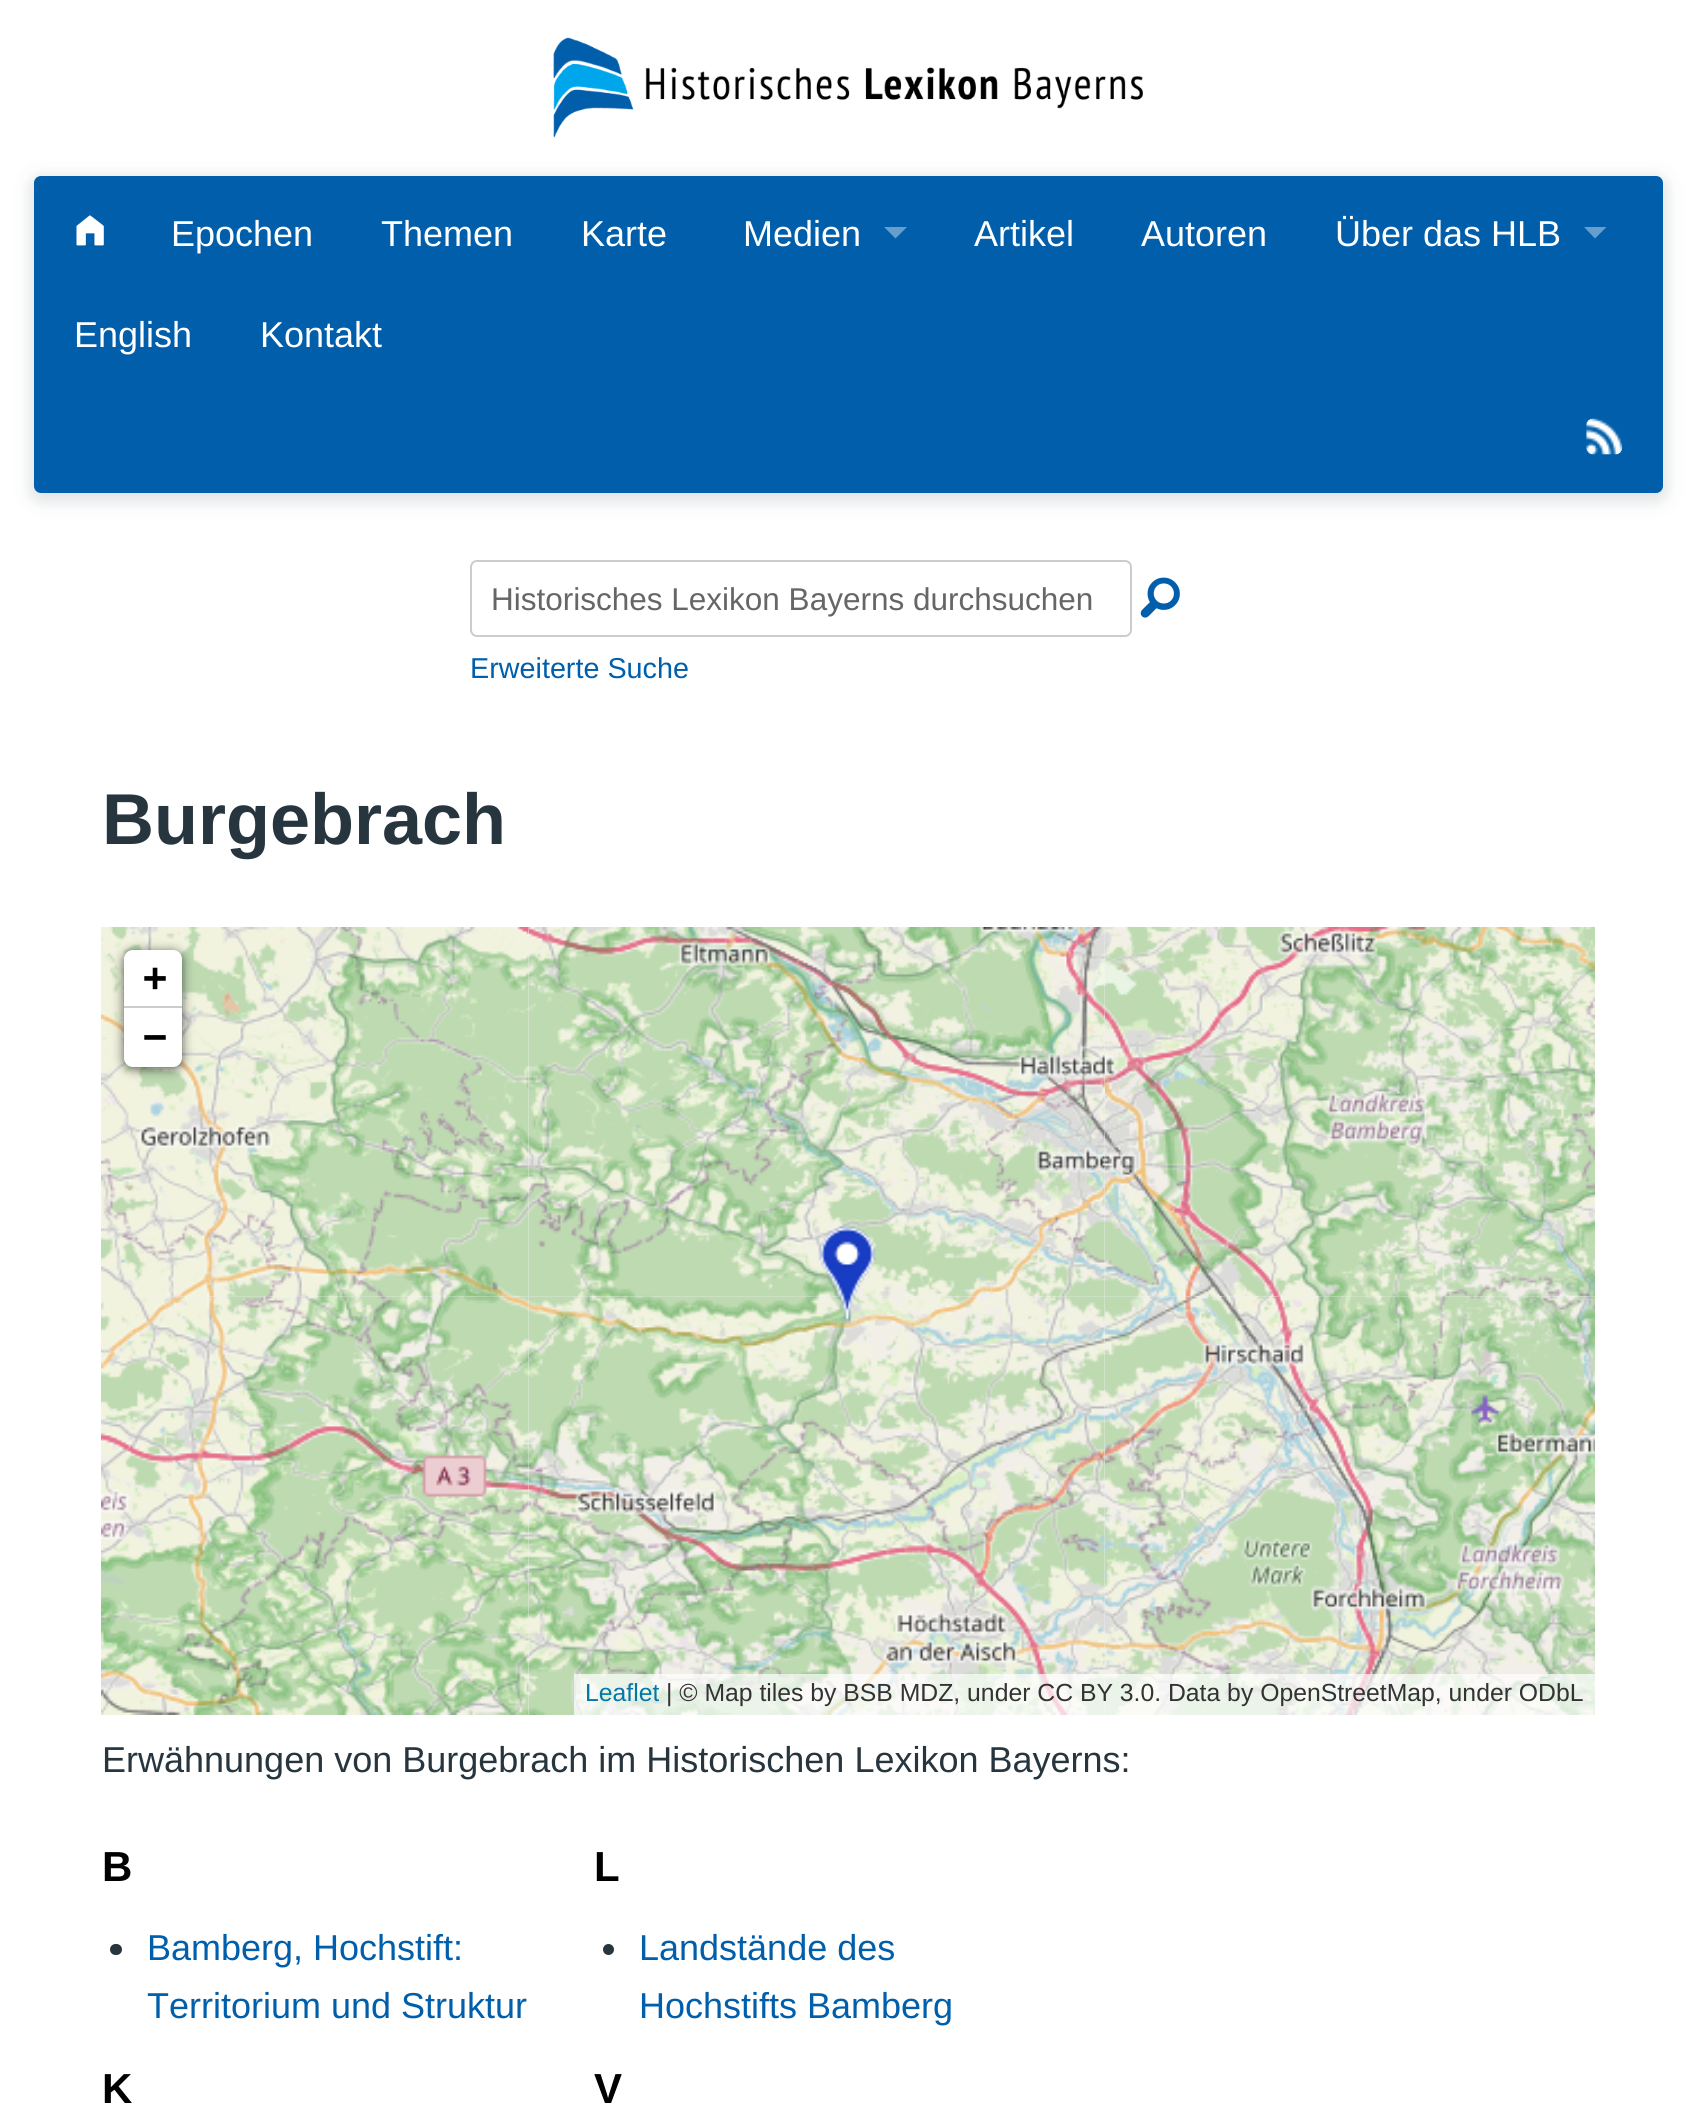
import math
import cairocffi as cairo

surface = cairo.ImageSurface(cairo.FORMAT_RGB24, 1696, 2110)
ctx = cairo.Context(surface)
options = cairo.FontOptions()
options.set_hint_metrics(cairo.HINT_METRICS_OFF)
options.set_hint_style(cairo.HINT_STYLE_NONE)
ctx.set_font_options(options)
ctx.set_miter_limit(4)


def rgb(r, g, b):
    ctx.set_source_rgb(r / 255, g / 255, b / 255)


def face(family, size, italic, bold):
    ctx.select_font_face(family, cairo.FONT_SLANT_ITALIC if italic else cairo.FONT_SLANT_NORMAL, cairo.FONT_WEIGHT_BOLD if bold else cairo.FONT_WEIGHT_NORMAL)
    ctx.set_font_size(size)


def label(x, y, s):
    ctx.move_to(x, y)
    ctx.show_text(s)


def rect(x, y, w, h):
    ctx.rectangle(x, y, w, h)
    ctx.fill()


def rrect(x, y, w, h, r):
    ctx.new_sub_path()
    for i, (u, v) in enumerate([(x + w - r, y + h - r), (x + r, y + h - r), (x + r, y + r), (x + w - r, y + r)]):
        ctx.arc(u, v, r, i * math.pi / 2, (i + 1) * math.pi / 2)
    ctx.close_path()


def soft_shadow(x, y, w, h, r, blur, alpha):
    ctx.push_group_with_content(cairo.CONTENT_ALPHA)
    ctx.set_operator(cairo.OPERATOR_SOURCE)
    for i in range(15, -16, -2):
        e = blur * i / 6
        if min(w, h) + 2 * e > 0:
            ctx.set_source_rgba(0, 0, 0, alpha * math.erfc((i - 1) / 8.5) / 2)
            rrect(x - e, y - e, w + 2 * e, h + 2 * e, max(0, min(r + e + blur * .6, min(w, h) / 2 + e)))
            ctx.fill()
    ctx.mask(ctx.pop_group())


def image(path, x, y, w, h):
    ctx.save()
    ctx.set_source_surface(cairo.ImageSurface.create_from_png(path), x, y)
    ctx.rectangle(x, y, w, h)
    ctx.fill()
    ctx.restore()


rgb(255, 255, 255)
ctx.paint()
image('image0.png', 553, 37, 590, 101)
rgb(39, 53, 62)
soft_shadow(32, 178, 1633, 322, 9, 9, 0.17)
rgb(0, 94, 171)
rrect(34, 176, 1629, 317, 7)
ctx.fill()
image('image1.png', 76, 215, 28, 31)
face('Liberation Sans', 36, 0, 0)
rgb(255, 255, 255)
label(171, 246, 'Epochen')
label(381, 246, 'Themen')
label(581, 246, 'Karte')
label(743, 246, 'Medien')
rgb(102, 158, 205)
ctx.new_path()
ctx.move_to(884, 227)
ctx.line_to(907, 227)
ctx.line_to(895.5, 238.5)
ctx.close_path()
ctx.fill()
rgb(255, 255, 255)
label(974, 246, 'Artikel')
label(1141, 246, 'Autoren')
label(1335, 246, 'Über das HLB')
rgb(102, 158, 205)
ctx.new_path()
ctx.move_to(1584, 227)
ctx.line_to(1606.5, 227)
ctx.line_to(1595, 238.5)
ctx.close_path()
ctx.fill()
rgb(255, 255, 255)
label(74, 347, 'English')
label(260, 347, 'Kontakt')
image('image2.png', 1586, 418, 37, 37)
rrect(471, 561, 660, 75, 6)
rgb(204, 204, 204)
ctx.stroke()
face('Liberation Sans', 31.5, 0, 0)
rgb(102, 102, 102)
label(491, 610, 'Historisches Lexikon Bayerns durchsuchen')
image('image3.png', 1140, 577, 40, 41)
face('Liberation Sans', 28.75, 0, 0)
rgb(0, 94, 171)
label(470, 678, 'Erweiterte Suche')
face('Liberation Sans', 72, 0, 1)
rgb(39, 53, 62)
label(102, 844, 'Burgebrach')
rgb(238, 238, 238)
rect(101, 927, 1494, 788)
image('image5.png', 529, 927, 576, 369)
image('image8.png', 529, 1295, 577, 420)
image('image4.png', 101, 927, 429, 369)
image('image6.png', 1105, 927, 490, 369)
image('image7.png', 101, 1295, 429, 420)
image('image9.png', 1105, 1295, 490, 420)
image('image10.png', 818, 1226, 58, 95)
rgb(0, 0, 0)
soft_shadow(124, 952, 58, 117, 9, 5.5, 0.65)
rgb(255, 255, 255)
ctx.new_path()
ctx.move_to(133, 950)
ctx.line_to(173, 950)
ctx.curve_to(178, 950, 182, 954, 182, 959)
ctx.line_to(182, 1008)
ctx.line_to(124, 1008)
ctx.line_to(124, 959)
ctx.curve_to(124, 954, 128, 950, 133, 950)
ctx.close_path()
ctx.fill()
rgb(204, 204, 204)
rect(124, 1006, 58, 2)
face('DejaVu Sans Mono', 40, 0, 1)
rgb(0, 0, 0)
label(143, 991, '+')
rgb(255, 255, 255)
ctx.new_path()
ctx.move_to(124, 1008)
ctx.line_to(182, 1008)
ctx.line_to(182, 1058)
ctx.curve_to(182, 1063, 178, 1067, 173, 1067)
ctx.line_to(133, 1067)
ctx.curve_to(128, 1067, 124, 1063, 124, 1058)
ctx.close_path()
ctx.fill()
rgb(0, 0, 0)
label(143, 1050, '−')
ctx.set_source_rgba(1, 1, 1, 0.7)
rect(574, 1674, 1021, 41)
face('Liberation Sans', 24.75, 0, 0)
rgb(0, 120, 168)
label(585, 1701, 'Leaflet')
rgb(51, 51, 51)
label(666, 1701, '| © Map tiles by BSB MDZ, under CC BY 3.0. Data by OpenStreetMap, under ODbL')
face('Liberation Sans', 36, 0, 0)
rgb(39, 53, 62)
label(102, 1772, 'Erwähnungen von Burgebrach im Historischen Lexikon Bayerns:')
face('Liberation Sans', 42, 0, 1)
rgb(0, 0, 0)
label(102, 1881, 'B')
rgb(39, 53, 62)
rrect(110, 1944, 12, 11, 5.5)
ctx.fill()
face('Liberation Sans', 36, 0, 0)
rgb(0, 94, 171)
label(147, 1960, 'Bamberg, Hochstift:')
label(147, 2018, 'Territorium und Struktur')
face('Liberation Sans', 42, 0, 1)
rgb(0, 0, 0)
label(102, 2103, 'K')
label(594, 1881, 'L')
rgb(39, 53, 62)
ctx.new_path()
ctx.arc(608.5, 1949.5, 5.5, 0, 2 * math.pi)
ctx.fill()
face('Liberation Sans', 36, 0, 0)
rgb(0, 94, 171)
label(639, 1960, 'Landstände des')
label(639, 2018, 'Hochstifts Bamberg')
face('Liberation Sans', 42, 0, 1)
rgb(0, 0, 0)
label(594, 2103, 'V')
surface.write_to_png('render.png')
